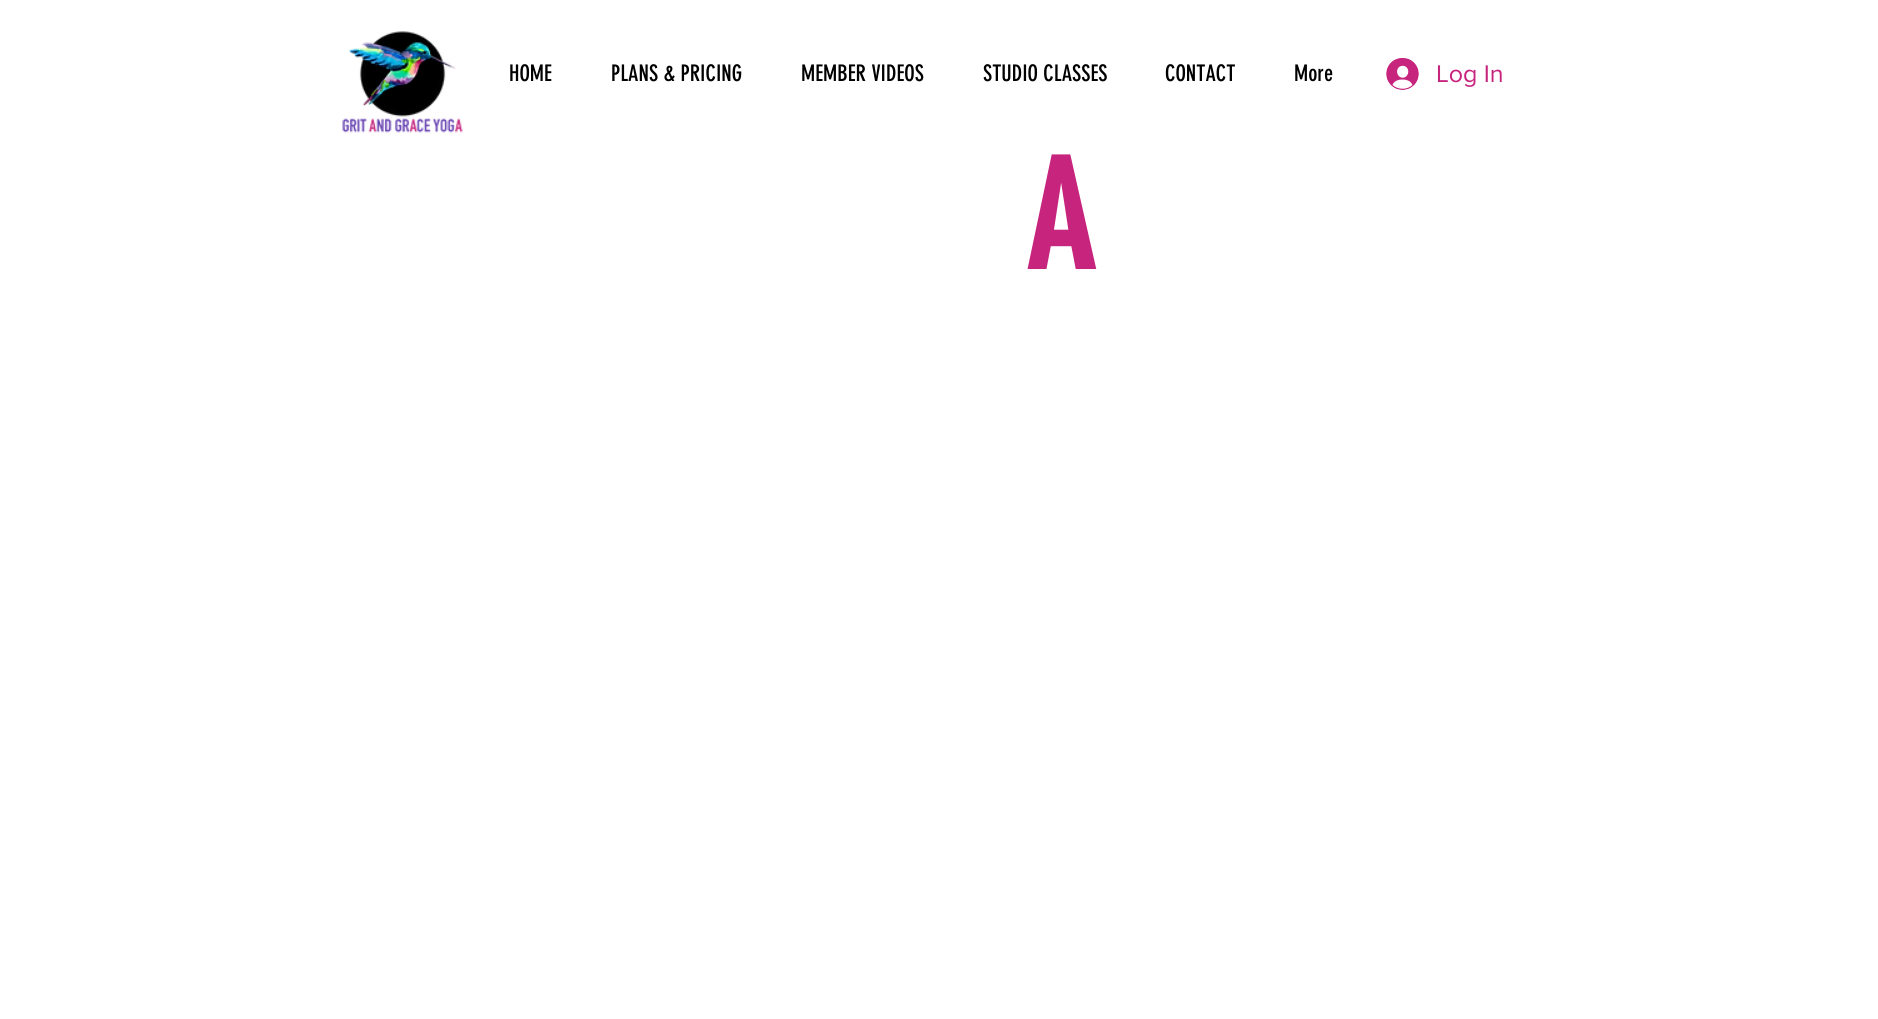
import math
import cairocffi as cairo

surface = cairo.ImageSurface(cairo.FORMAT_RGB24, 1878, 1019)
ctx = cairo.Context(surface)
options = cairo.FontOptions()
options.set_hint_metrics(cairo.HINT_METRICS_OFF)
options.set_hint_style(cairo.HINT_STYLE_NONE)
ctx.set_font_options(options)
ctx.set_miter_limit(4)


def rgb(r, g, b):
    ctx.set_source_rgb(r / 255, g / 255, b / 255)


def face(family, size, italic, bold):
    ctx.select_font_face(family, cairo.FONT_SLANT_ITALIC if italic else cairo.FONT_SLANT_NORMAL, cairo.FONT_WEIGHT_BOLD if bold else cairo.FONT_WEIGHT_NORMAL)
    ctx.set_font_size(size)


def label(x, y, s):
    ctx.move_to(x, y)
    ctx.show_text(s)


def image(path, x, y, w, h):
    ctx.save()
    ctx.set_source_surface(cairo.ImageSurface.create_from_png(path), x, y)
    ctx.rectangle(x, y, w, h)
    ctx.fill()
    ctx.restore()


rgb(255, 255, 255)
ctx.paint()
image('image0.png', 342, 31, 121, 102)
face('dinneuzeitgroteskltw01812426', 22.5, 0, 0)
rgb(0, 0, 0)
label(509, 81, 'HOME')
label(611, 81, 'PLANS & PRICING')
label(801, 81, 'MEMBER VIDEOS')
label(983, 81, 'STUDIO CLASSES')
label(1165, 81, 'CONTACT')
label(1294, 81, 'More')
image('image1.png', 1386, 58, 33, 32)
face('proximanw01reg', 25, 0, 0)
rgb(199, 36, 126)
label(1436, 82, 'Log In')
face('dinneuzeitgroteskltw01812426', 150, 0, 1)
label(1025, 269, 'A')
surface.write_to_png('render.png')
